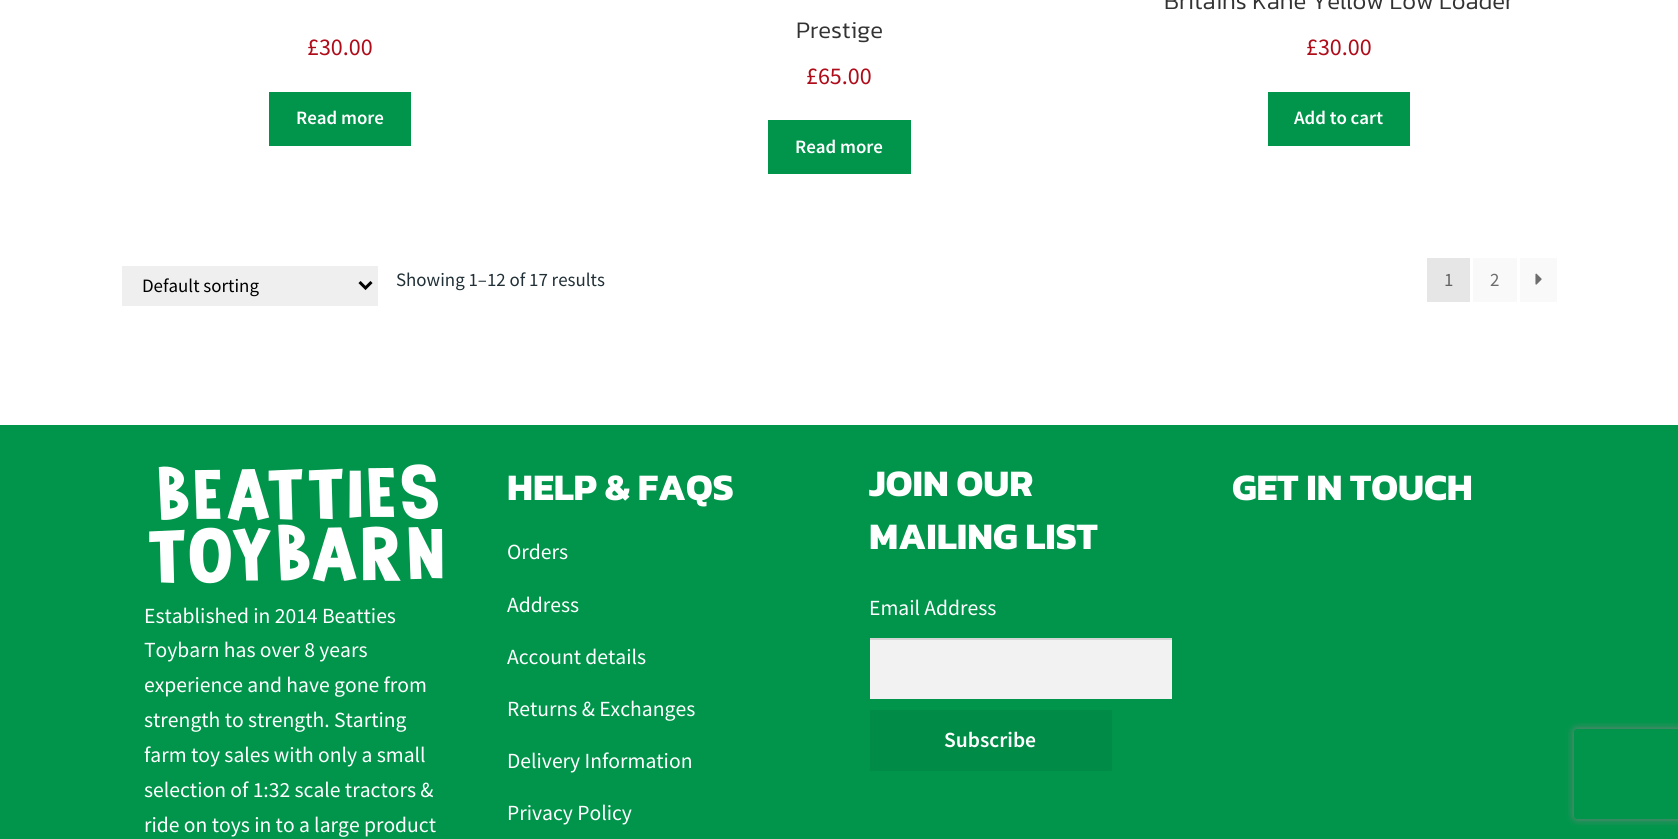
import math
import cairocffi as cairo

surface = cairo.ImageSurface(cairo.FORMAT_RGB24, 1678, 839)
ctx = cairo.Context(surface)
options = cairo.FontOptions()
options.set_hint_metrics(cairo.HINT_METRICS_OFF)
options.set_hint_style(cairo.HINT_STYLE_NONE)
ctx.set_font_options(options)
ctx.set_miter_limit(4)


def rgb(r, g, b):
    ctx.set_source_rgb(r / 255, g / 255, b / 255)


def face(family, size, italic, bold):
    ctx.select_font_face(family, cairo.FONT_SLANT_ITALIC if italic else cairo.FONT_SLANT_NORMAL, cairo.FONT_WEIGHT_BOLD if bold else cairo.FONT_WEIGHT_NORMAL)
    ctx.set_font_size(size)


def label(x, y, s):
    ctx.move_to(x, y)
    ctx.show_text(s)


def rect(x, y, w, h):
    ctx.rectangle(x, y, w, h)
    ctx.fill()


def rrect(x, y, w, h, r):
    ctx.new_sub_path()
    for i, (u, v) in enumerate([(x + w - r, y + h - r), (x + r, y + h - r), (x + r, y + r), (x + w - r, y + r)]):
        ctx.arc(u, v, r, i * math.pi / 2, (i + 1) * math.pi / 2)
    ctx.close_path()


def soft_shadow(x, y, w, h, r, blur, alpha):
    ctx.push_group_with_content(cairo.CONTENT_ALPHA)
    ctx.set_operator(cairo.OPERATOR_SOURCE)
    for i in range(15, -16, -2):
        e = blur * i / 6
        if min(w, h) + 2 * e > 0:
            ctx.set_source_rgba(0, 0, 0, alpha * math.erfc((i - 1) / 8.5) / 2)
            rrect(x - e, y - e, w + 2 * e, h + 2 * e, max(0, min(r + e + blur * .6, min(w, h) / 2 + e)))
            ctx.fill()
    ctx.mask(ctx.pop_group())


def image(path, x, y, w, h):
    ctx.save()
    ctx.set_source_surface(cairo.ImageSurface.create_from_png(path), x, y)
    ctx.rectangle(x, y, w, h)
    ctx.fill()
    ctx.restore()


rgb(255, 255, 255)
ctx.paint()
face('Source Sans Pro', 24, 0, 0)
rgb(175, 11, 25)
label(307, 55, '£30.00')
rgb(0, 149, 75)
rect(269, 92, 142, 54)
face('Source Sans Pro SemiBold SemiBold', 18.9, 0, 0)
rgb(255, 255, 255)
label(296, 124, 'Read more')
face('Kanit Light', 24, 0, 0)
rgb(51, 51, 51)
label(796, 38, 'Prestige')
face('Source Sans Pro', 24, 0, 0)
rgb(175, 11, 25)
label(806, 84, '£65.00')
rgb(0, 149, 75)
rect(768, 120, 143, 54)
face('Source Sans Pro SemiBold SemiBold', 18.9, 0, 0)
rgb(255, 255, 255)
label(795, 153, 'Read more')
face('Kanit Light', 24, 0, 0)
rgb(51, 51, 51)
label(1164, 9, 'Britains Kane Yellow Low Loader')
face('Source Sans Pro', 24, 0, 0)
rgb(175, 11, 25)
label(1306, 55, '£30.00')
rgb(0, 149, 75)
rect(1268, 92, 142, 54)
face('Source Sans Pro SemiBold SemiBold', 18.9, 0, 0)
rgb(255, 255, 255)
label(1294, 124, 'Add to cart')
rgb(239, 239, 239)
rect(122, 266, 256, 40)
ctx.new_path()
ctx.move_to(359.5, 282)
ctx.line_to(365.5, 288)
ctx.line_to(371.5, 282)
rgb(0, 0, 0)
ctx.set_line_width(3)
ctx.stroke()
face('Source Sans Pro', 18.9, 0, 0)
label(142, 292, 'Default sorting')
rgb(33, 48, 55)
label(396, 286, 'Showing 1–12 of 17 results')
rgb(230, 230, 230)
rect(1427, 258, 43, 44)
rgb(99, 99, 99)
label(1444, 286, '1')
rgb(249, 249, 249)
rect(1473, 258, 44, 44)
rgb(109, 109, 109)
label(1490, 286, '2')
rgb(249, 249, 249)
rect(1520, 258, 37, 44)
image('image0.png', 1535, 273, 7, 12)
rgb(0, 149, 75)
rect(0, 425, 1678, 414)
face('Kanit', 37.75, 0, 1)
rgb(255, 255, 255)
label(507, 500, 'HELP & FAQS')
face('Source Sans Pro', 21.6, 0, 0)
label(507, 559, 'Orders')
label(507, 612, 'Address')
label(507, 664, 'Account details')
label(507, 716, 'Returns & Exchanges')
label(507, 768, 'Delivery Information')
label(507, 820, 'Privacy Policy')
face('Kanit', 37.75, 0, 1)
label(869, 496, 'JOIN OUR')
label(869, 549, 'MAILING LIST')
face('Source Sans Pro', 21.6, 0, 0)
label(869, 615, 'Email Address')
rgb(242, 242, 242)
rect(870, 640, 302, 59)
rgb(212, 212, 212)
rect(870, 638, 302, 2)
rgb(0, 140, 70)
rect(870, 710, 242, 61)
face('Source Sans Pro SemiBold SemiBold', 21.6, 0, 0)
rgb(255, 255, 255)
label(944, 747, 'Subscribe')
face('Kanit', 37.75, 0, 1)
label(1232, 500, 'GET IN TOUCH')
image('image1.png', 149, 464, 294, 120)
face('Source Sans Pro', 21.6, 0, 0)
label(144, 623, 'Established in 2014 Beatties')
label(144, 657, 'Toybarn has over 8 years')
label(144, 692, 'experience and have gone from')
label(144, 727, 'strength to strength. Starting')
label(144, 762, 'farm toy sales with only a small')
label(144, 797, 'selection of 1:32 scale tractors &')
label(144, 832, 'ride on toys in to a large product')
ctx.save()
ctx.set_fill_rule(cairo.FILL_RULE_EVEN_ODD)
ctx.new_path()
ctx.move_to(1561, 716)
ctx.line_to(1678, 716)
ctx.line_to(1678, 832)
ctx.line_to(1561, 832)
ctx.close_path()
ctx.move_to(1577, 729)
ctx.line_to(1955, 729)
ctx.curve_to(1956.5, 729, 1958, 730.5, 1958, 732)
ctx.line_to(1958, 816)
ctx.curve_to(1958, 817.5, 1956.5, 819, 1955, 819)
ctx.line_to(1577, 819)
ctx.curve_to(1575.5, 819, 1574, 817.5, 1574, 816)
ctx.line_to(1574, 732)
ctx.curve_to(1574, 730.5, 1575.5, 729, 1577, 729)
ctx.close_path()
ctx.clip()
rgb(128, 128, 128)
soft_shadow(1574, 729, 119, 90, 3, 4, 1)
ctx.restore()
surface.write_to_png('render.png')
